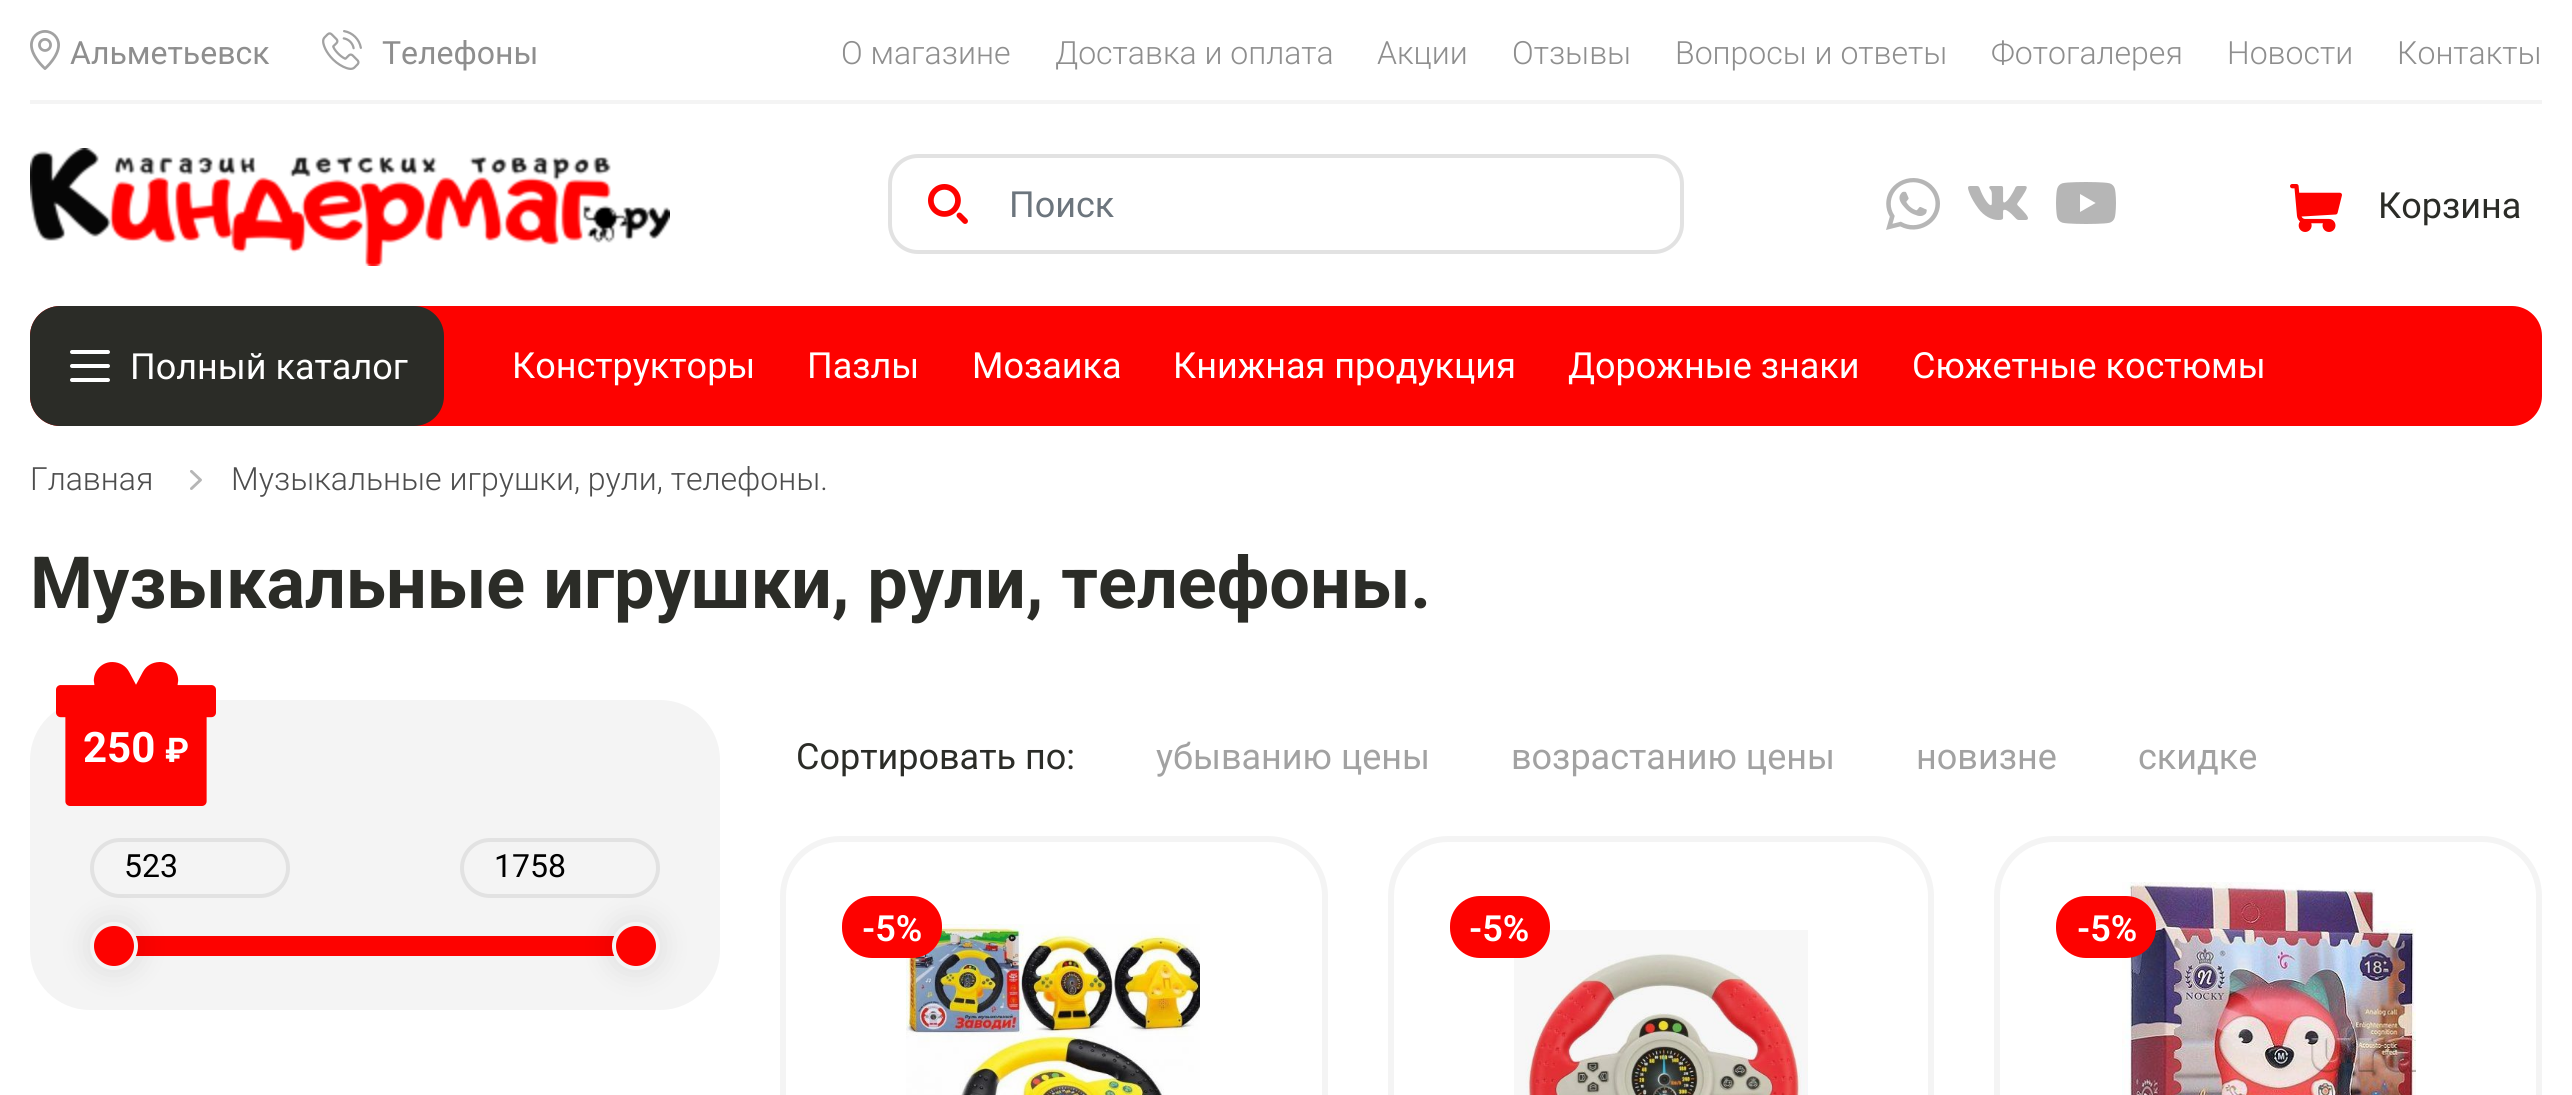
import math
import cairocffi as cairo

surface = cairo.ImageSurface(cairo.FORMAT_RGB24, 2572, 1095)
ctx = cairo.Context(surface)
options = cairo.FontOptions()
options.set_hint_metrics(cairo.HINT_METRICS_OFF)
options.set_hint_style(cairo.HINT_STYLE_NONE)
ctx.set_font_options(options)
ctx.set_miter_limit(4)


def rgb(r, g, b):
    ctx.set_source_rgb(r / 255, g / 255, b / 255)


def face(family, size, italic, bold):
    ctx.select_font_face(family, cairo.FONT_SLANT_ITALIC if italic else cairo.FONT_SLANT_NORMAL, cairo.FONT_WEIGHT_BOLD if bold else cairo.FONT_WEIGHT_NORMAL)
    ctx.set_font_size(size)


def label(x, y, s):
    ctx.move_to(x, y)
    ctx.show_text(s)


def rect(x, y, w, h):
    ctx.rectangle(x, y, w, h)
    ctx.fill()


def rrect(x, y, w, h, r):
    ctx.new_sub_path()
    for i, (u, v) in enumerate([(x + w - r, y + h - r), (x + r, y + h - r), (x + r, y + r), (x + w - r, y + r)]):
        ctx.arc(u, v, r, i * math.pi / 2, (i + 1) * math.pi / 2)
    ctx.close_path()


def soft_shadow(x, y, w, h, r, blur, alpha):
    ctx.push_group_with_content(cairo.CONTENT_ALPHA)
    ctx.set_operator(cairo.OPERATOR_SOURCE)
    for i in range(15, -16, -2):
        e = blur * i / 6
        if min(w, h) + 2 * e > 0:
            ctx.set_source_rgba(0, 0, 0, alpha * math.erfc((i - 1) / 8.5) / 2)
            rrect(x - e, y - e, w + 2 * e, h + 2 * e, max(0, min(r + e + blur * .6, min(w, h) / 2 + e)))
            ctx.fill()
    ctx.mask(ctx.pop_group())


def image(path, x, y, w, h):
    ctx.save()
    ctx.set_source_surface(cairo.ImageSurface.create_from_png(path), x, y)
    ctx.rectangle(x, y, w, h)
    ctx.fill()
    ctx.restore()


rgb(255, 255, 255)
ctx.paint()
rgb(244, 244, 244)
rect(30, 100, 2512, 4)
image('image0.png', 30, 30, 30, 40)
face('Roboto', 32, 0, 0)
rgb(142, 142, 142)
label(70, 64, 'Альметьевск')
image('image1.png', 322, 30, 40, 40)
label(382, 64, 'Телефоны')
face('Roboto Light', 32, 0, 0)
label(841, 64, 'О магазине')
label(1055, 64, 'Доставка и оплата')
label(1377, 64, 'Акции')
label(1512, 64, 'Отзывы')
label(1675, 64, 'Вопросы и ответы')
label(1991, 64, 'Фотогалерея')
label(2227, 64, 'Новости')
label(2397, 64, 'Контакты')
image('image2.png', 30, 148, 640, 118)
image('image3.png', 928, 184, 40, 40)
rrect(890, 156, 792, 96, 28)
rgb(226, 226, 226)
ctx.set_line_width(4)
ctx.stroke()
face('Roboto', 36, 0, 0)
rgb(108, 117, 125)
label(1009, 217, 'Поиск')
image('image4.png', 1886, 178, 54, 52)
image('image5.png', 1968, 186, 60, 34)
image('image6.png', 2056, 182, 60, 42)
image('image7.png', 2290, 184, 52, 48)
rgb(43, 44, 39)
label(2378, 218, 'Корзина')
rgb(253, 2, 0)
rrect(30, 306, 2512, 120, 30)
ctx.fill()
rgb(43, 44, 39)
rrect(30, 306, 414, 120, 30)
ctx.fill()
image('image8.png', 70, 350, 40, 32)
rgb(255, 255, 255)
label(130, 379, 'Полный каталог')
label(512, 378, 'Конструкторы')
label(807, 378, 'Пазлы')
label(972, 378, 'Мозаика')
label(1173, 378, 'Книжная продукция')
label(1568, 378, 'Дорожные знаки')
label(1912, 378, 'Сюжетные костюмы')
face('Roboto Light', 32, 0, 0)
rgb(77, 77, 77)
label(30, 490, 'Главная')
image('image9.png', 190, 470, 12, 20)
label(231, 490, 'Музыкальные игрушки, рули, телефоны.')
face('Roboto', 72, 0, 1)
rgb(43, 44, 39)
label(30, 608, 'Музыкальные игрушки, рули, телефоны.')
rgb(244, 244, 244)
rrect(30, 700, 690, 310, 60)
ctx.fill()
rrect(92, 840, 196, 56, 28)
rgb(226, 226, 226)
ctx.stroke()
face('Roboto', 32, 0, 0)
rgb(0, 0, 0)
label(124, 877, '523')
rrect(462, 840, 196, 56, 28)
rgb(226, 226, 226)
ctx.stroke()
rgb(0, 0, 0)
label(494, 877, '1758')
rgb(253, 2, 0)
rect(135, 936, 480, 20)
rgb(0, 0, 0)
soft_shadow(90, 922, 48, 48, 24, 15, 0.1)
rgb(253, 2, 0)
ctx.arc(114, 946, 22, 0, 2 * math.pi)
ctx.fill_preserve()
rgb(244, 244, 244)
ctx.stroke()
rgb(0, 0, 0)
soft_shadow(612, 922, 48, 48, 24, 15, 0.1)
rgb(253, 2, 0)
ctx.arc(636, 946, 22, 0, 2 * math.pi)
ctx.fill_preserve()
rgb(244, 244, 244)
ctx.stroke()
face('Roboto', 36, 0, 0)
rgb(43, 44, 39)
label(796, 769, 'Сортировать по:')
rgb(162, 162, 162)
label(1156, 769, 'убыванию цены')
label(1511, 769, 'возрастанию цены')
label(1916, 769, 'новизне')
label(2138, 769, 'скидке')
rrect(783, 839, 542, 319, 57)
rgb(244, 244, 244)
ctx.set_line_width(6)
ctx.stroke()
image('image10.png', 906, 924, 294, 171)
rgb(253, 2, 0)
rrect(842, 896, 100, 62, 30)
ctx.fill()
face('Roboto SemiBold', 36, 0, 0)
rgb(255, 255, 255)
label(862, 941, '-5%')
rrect(1391, 839, 540, 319, 57)
rgb(244, 244, 244)
ctx.stroke()
image('image11.png', 1514, 930, 294, 165)
rgb(253, 2, 0)
rrect(1450, 896, 100, 62, 30)
ctx.fill()
rgb(255, 255, 255)
label(1469, 941, '-5%')
rrect(1997, 839, 542, 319, 57)
rgb(244, 244, 244)
ctx.stroke()
image('image12.png', 2122, 882, 294, 213)
rgb(253, 2, 0)
rrect(2056, 896, 100, 62, 30)
ctx.fill()
rgb(255, 255, 255)
label(2077, 941, '-5%')
image('image13.png', 56, 662, 160, 144)
face('Roboto', 42, 0, 1)
label(83, 762, '250')
face('Roboto', 34, 0, 1)
label(165, 762, '₽')
surface.write_to_png('render.png')
